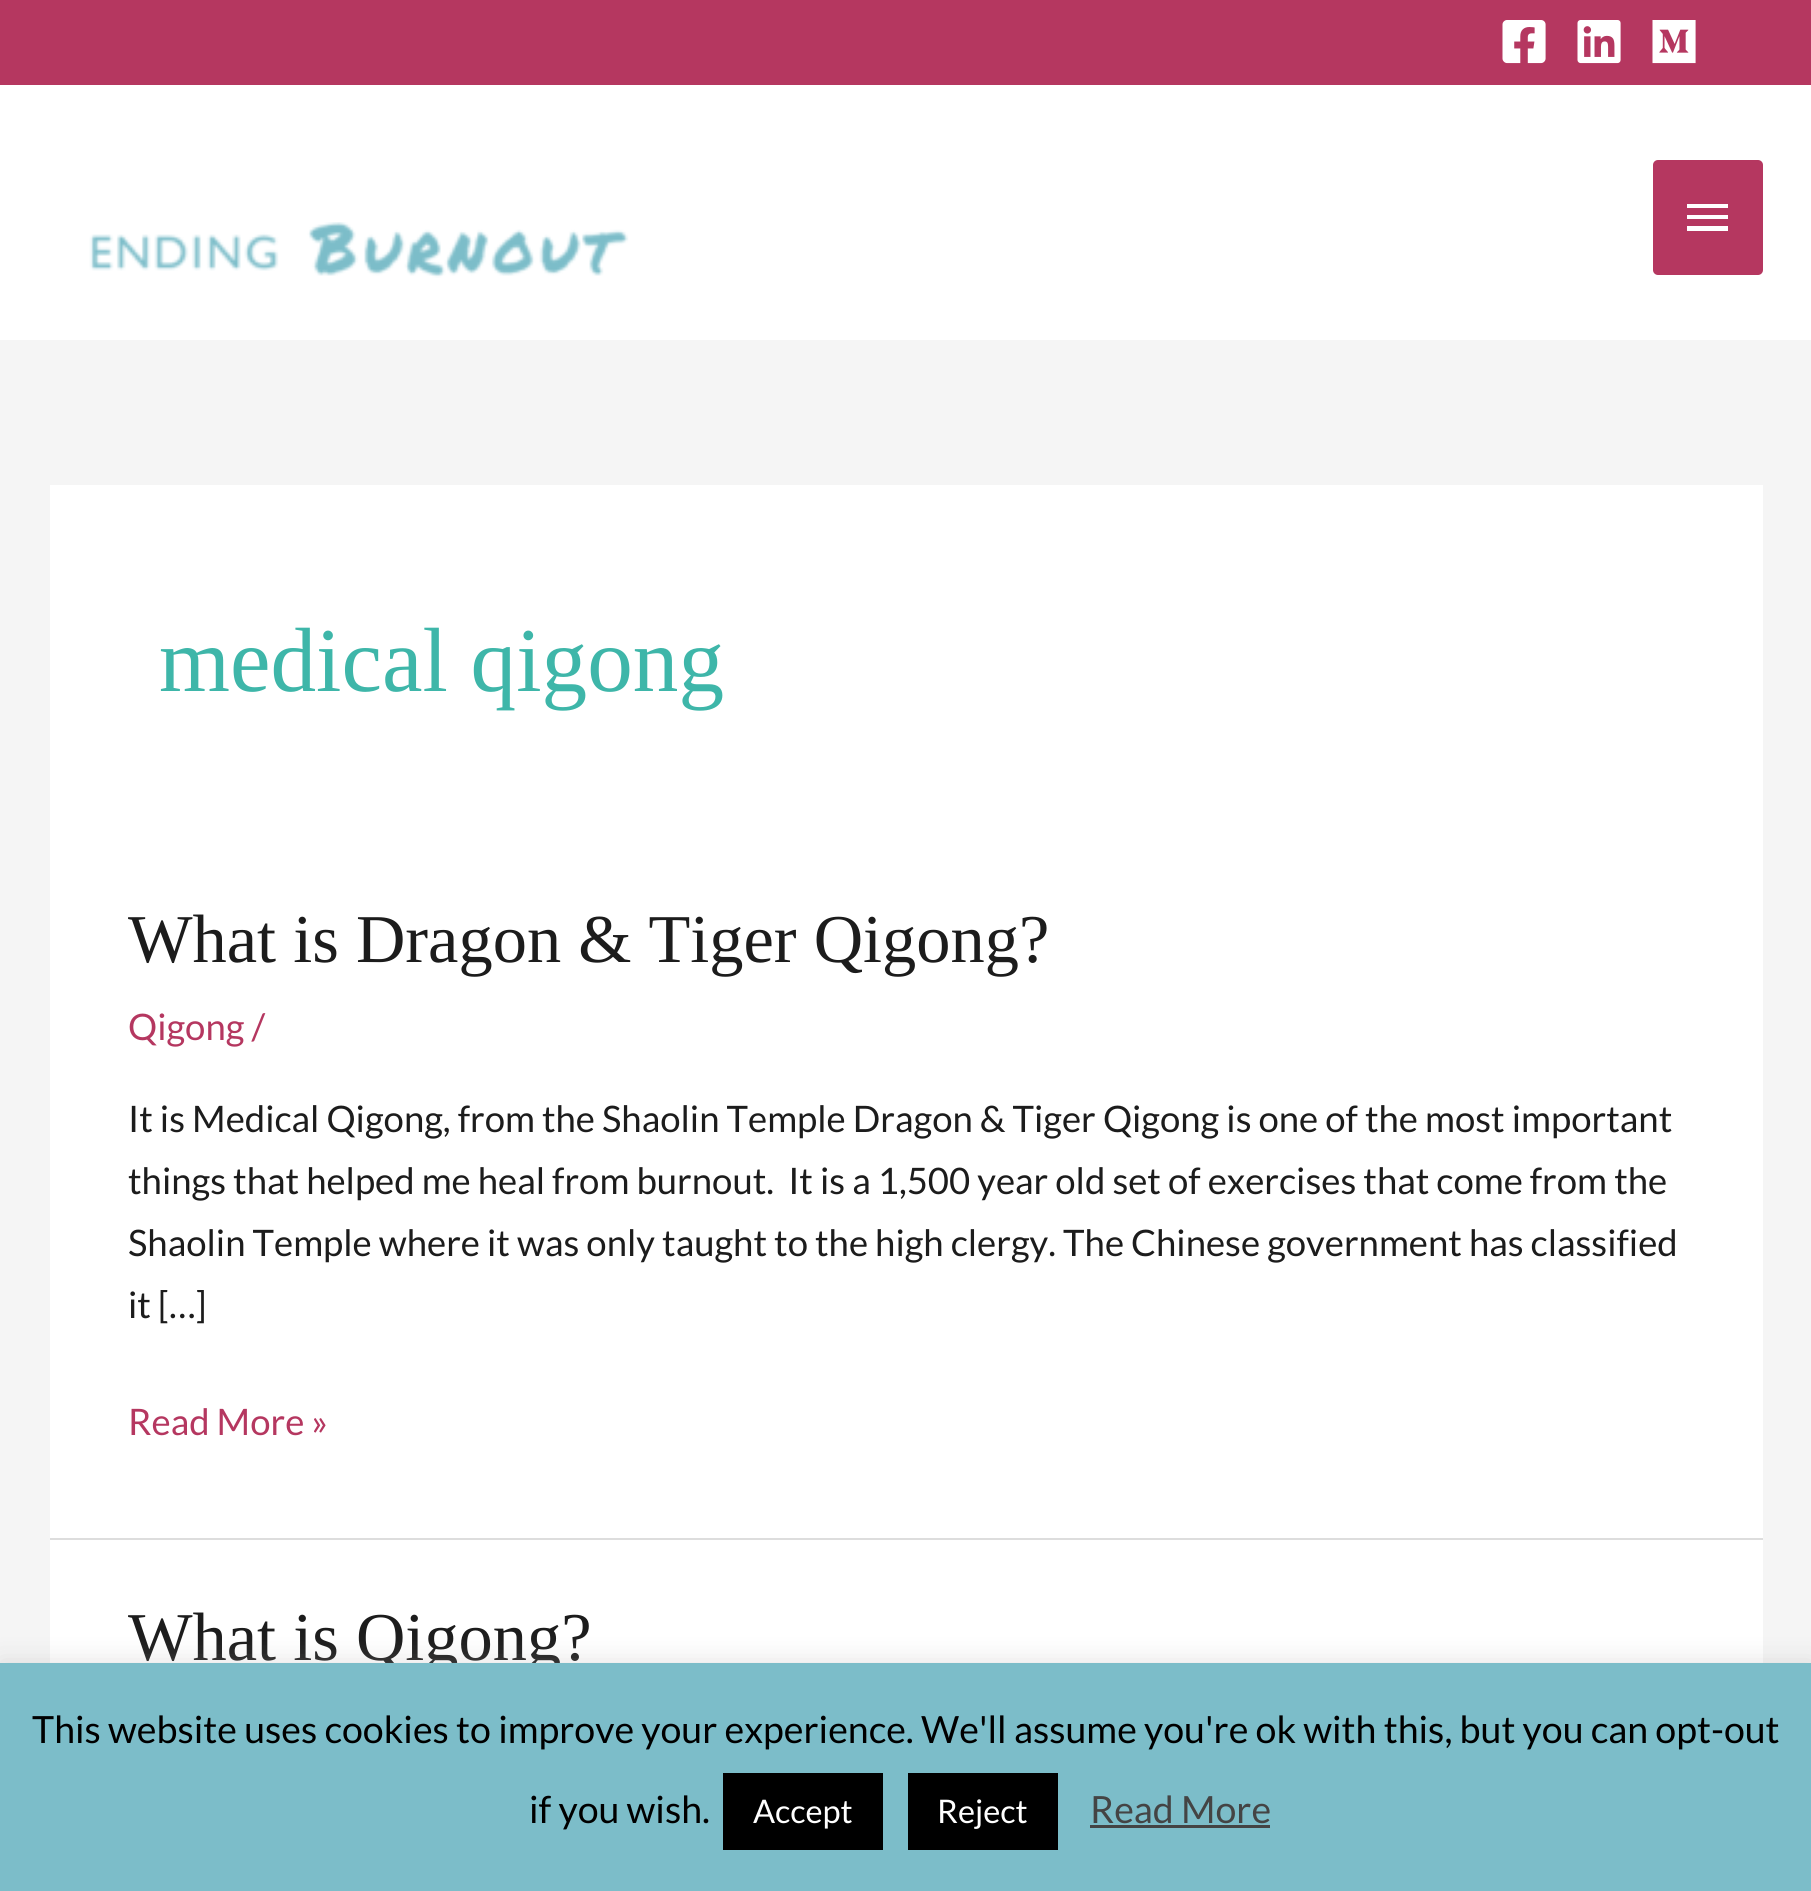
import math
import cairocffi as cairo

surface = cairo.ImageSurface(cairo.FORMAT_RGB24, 1811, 1891)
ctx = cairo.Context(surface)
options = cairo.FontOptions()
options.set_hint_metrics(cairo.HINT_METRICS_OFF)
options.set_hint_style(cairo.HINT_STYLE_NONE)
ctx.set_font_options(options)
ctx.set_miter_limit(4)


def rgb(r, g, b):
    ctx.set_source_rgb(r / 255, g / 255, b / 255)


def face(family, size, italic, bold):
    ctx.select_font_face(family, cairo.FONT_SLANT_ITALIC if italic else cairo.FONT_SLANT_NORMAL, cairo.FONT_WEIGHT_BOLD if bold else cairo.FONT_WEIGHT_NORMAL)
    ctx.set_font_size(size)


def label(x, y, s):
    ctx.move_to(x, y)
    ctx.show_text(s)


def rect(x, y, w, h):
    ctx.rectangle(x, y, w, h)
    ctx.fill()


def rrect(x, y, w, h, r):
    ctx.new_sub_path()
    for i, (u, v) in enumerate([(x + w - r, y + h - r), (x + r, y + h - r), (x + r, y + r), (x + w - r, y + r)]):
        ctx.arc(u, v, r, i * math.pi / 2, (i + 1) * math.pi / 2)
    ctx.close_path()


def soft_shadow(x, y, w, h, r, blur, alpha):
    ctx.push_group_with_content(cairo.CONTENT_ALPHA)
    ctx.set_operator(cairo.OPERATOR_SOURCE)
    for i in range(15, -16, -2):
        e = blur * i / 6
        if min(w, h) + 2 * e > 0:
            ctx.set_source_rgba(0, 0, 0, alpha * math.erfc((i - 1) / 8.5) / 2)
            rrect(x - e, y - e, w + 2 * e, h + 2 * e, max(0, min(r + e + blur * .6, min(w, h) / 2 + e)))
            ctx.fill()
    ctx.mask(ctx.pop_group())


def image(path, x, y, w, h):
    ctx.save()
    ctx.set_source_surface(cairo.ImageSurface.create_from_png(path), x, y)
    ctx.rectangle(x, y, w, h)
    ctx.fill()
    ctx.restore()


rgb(245, 245, 245)
ctx.paint()
rgb(255, 255, 255)
rect(0, 85, 1811, 255)
rgb(181, 55, 96)
rect(0, 0, 1811, 85)
image('image0.png', 1502, 20, 44, 44)
image('image1.png', 1577, 20, 44, 44)
image('image2.png', 1652, 20, 44, 44)
image('image3.png', 89, 222, 540, 56)
rrect(1653, 160, 110, 115, 5)
ctx.fill()
rgb(255, 255, 255)
ctx.new_path()
ctx.move_to(1687, 204)
ctx.line_to(1728, 204)
ctx.line_to(1728, 208)
ctx.line_to(1687, 208)
ctx.close_path()
ctx.move_to(1687, 219)
ctx.line_to(1687, 215)
ctx.line_to(1728, 215)
ctx.line_to(1728, 219)
ctx.close_path()
ctx.move_to(1687, 231)
ctx.line_to(1687, 226)
ctx.line_to(1728, 226)
ctx.line_to(1728, 231)
ctx.close_path()
ctx.fill()
rect(50, 485, 1713, 1053)
face('Liberation Serif', 91.25, 0, 0)
rgb(62, 182, 169)
label(159, 691, 'medical qigong')
rgb(221, 221, 221)
rect(50, 1538, 1713, 2)
face('Liberation Serif', 68.4, 0, 0)
rgb(28, 28, 28)
label(128, 962, 'What is Dragon & Tiger Qigong?')
face('Lato', 36.5, 0, 0)
rgb(181, 55, 96)
label(128, 1040, 'Qigong /')
rgb(28, 28, 28)
label(128, 1132, 'It is Medical Qigong, from the Shaolin Temple Dragon & Tiger Qigong is one of the most important')
label(128, 1194, 'things that helped me heal from burnout.  It is a 1,500 year old set of exercises that come from the')
label(128, 1256, 'Shaolin Temple where it was only taught to the high clergy. The Chinese government has classified')
label(128, 1318, 'it […]')
rgb(181, 55, 96)
label(128, 1435, 'Read More »')
rgb(255, 255, 255)
rect(50, 1540, 1713, 123)
face('Liberation Serif', 68.4, 0, 0)
rgb(28, 28, 28)
label(128, 1660, 'What is Qigong?')
rgb(172, 171, 171)
soft_shadow(0, 1660, 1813, 230, 0, 12.5, 0.3)
rgb(124, 189, 201)
rect(0, 1663, 1811, 228)
face('Lato', 37.5, 0, 0)
rgb(0, 0, 0)
label(32, 1743, 'This website uses cookies to improve your experience. We\'ll assume you\'re ok with this, but you can opt-out')
label(529, 1823, 'if you wish.')
rect(723, 1773, 160, 77)
face('Lato', 32.5, 0, 0)
rgb(255, 255, 255)
label(753, 1823, 'Accept')
rgb(0, 0, 0)
rect(908, 1773, 150, 77)
rgb(255, 255, 255)
label(937, 1823, 'Reject')
face('Lato', 37.5, 0, 0)
rgb(68, 68, 68)
label(1090, 1823, 'Read More')
rect(1090, 1825, 180, 3)
surface.write_to_png('render.png')
